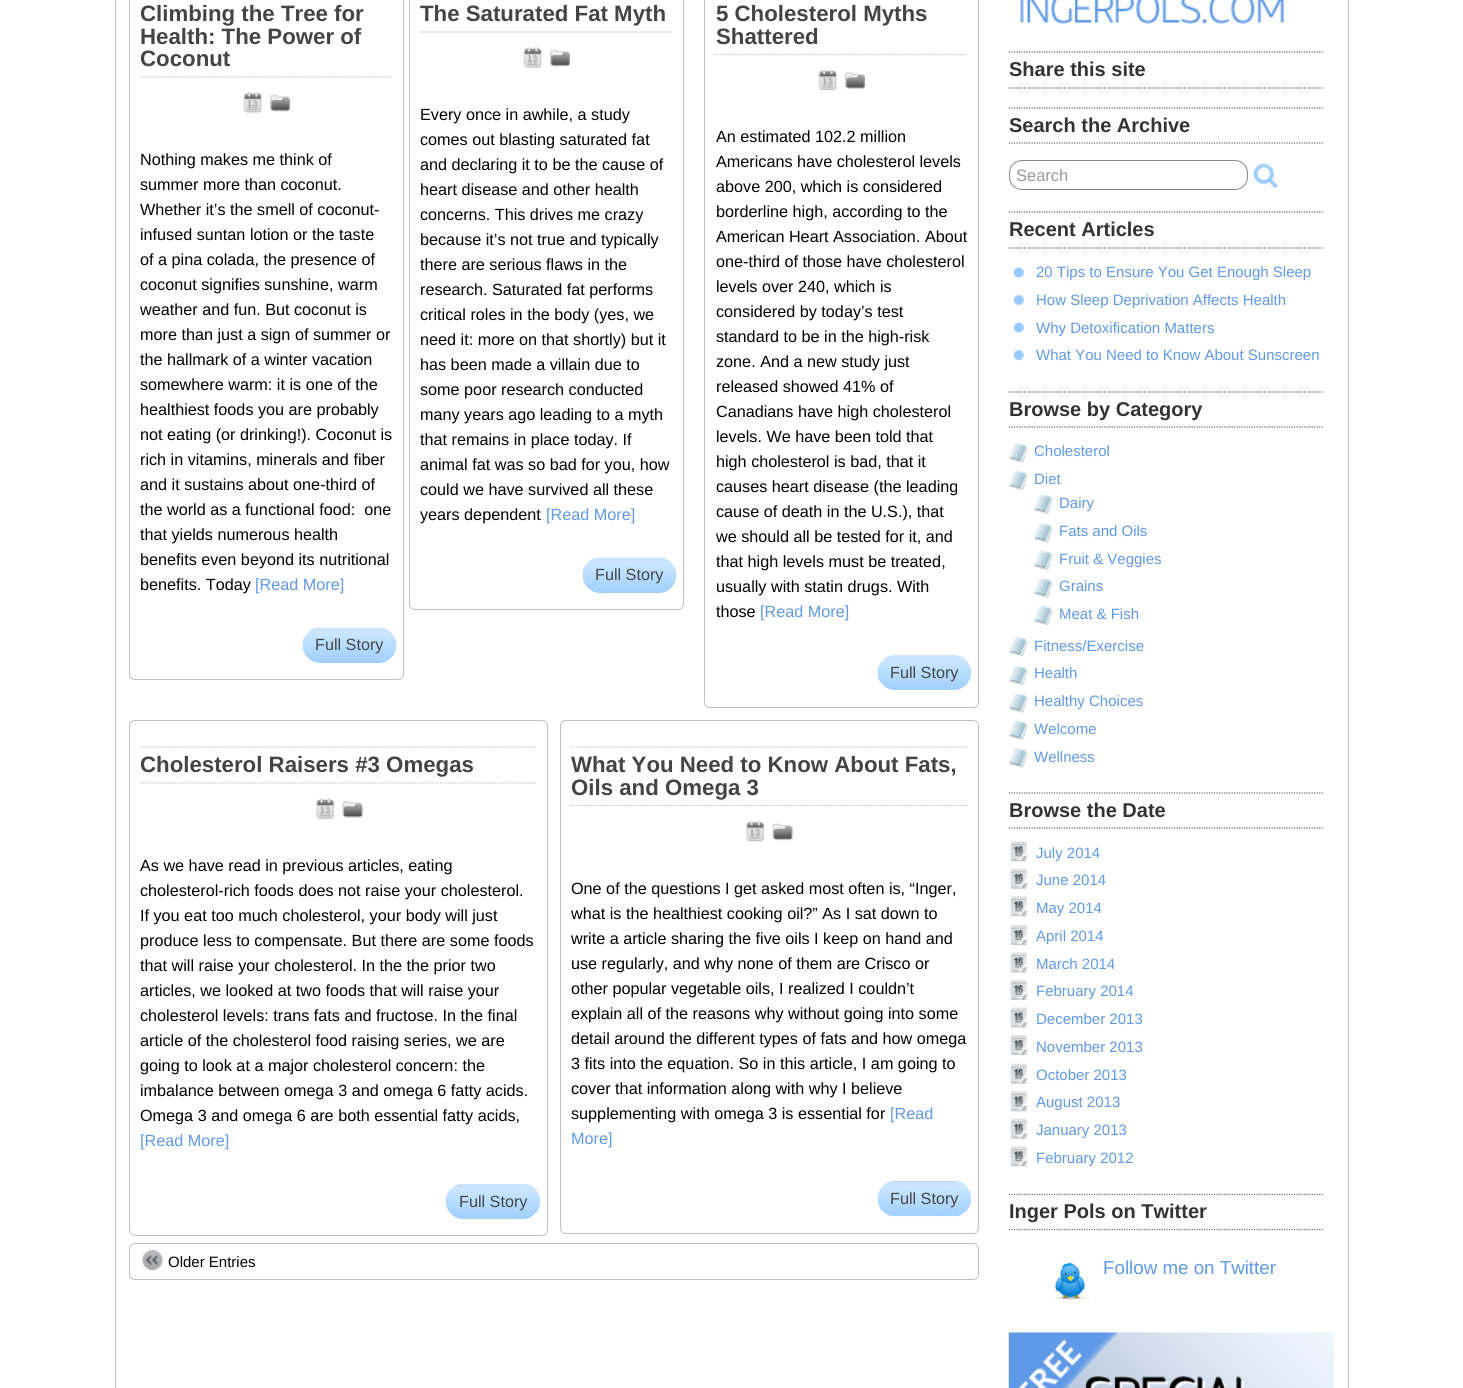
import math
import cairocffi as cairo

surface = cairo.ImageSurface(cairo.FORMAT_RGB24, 1463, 1388)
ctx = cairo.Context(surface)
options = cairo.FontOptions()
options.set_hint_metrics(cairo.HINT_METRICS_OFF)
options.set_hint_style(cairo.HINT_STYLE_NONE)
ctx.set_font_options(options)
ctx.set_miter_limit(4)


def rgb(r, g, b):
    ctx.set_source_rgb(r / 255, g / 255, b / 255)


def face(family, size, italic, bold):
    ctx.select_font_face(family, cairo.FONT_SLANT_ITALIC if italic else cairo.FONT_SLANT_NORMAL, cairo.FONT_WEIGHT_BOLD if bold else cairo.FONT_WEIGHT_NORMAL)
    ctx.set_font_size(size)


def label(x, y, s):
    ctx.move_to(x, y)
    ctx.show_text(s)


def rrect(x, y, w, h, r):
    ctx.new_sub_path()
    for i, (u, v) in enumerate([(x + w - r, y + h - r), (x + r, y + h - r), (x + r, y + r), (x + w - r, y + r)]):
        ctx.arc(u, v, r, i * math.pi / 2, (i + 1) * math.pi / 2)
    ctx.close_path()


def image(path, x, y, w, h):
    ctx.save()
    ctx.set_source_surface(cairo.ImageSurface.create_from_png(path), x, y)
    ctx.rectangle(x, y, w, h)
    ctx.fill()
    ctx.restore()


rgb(255, 255, 255)
ctx.paint()
ctx.rectangle(115.5, -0.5, 1233, 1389)
rgb(192, 192, 192)
ctx.set_line_width(1)
ctx.stroke()
rrect(129.5, -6.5, 274, 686, 5.5)
ctx.stroke()
ctx.new_path()
ctx.move_to(140, 77)
ctx.line_to(392.5, 77)
ctx.set_line_width(1.2)
ctx.set_dash([1.25, 1.25])
ctx.stroke()
face('Liberation Sans', 22.25, 0, 1)
rgb(68, 68, 68)
label(140, 21, 'Climbing the Tree for')
label(140, 44, 'Health: The Power of')
label(140, 66, 'Coconut')
image('image0.png', 243, 92, 19, 21)
image('image1.png', 270, 95, 20, 17)
face('Liberation Sans', 16.2, 0, 0)
rgb(0, 0, 0)
label(140, 165, 'Nothing makes me think of')
label(140, 190, 'summer more than coconut.')
label(140, 215, 'Whether it’s the smell of coconut-')
label(140, 240, 'infused suntan lotion or the taste')
label(140, 265, 'of a pina colada, the presence of')
label(140, 290, 'coconut signifies sunshine, warm')
label(140, 315, 'weather and fun. But coconut is')
label(140, 340, 'more than just a sign of summer or')
label(140, 365, 'the hallmark of a winter vacation')
label(140, 390, 'somewhere warm: it is one of the')
label(140, 415, 'healthiest foods you are probably')
label(140, 440, 'not eating (or drinking!). Coconut is')
label(140, 465, 'rich in vitamins, minerals and fiber')
label(140, 490, 'and it sustains about one-third of')
label(140, 515, 'the world as a functional food:  one')
label(140, 540, 'that yields numerous health')
label(140, 565, 'benefits even beyond its nutritional')
label(140, 590, 'benefits. Today')
rgb(95, 153, 231)
label(255, 590, '[Read More]')
rgb(151, 202, 255)
rrect(303, 628, 93, 35, 17.5)
ctx.fill()
image('image2.png', 302, 627, 95, 36)
rgb(68, 68, 68)
label(315, 650, 'Full Story')
rrect(409.5, -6.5, 274, 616, 5.5)
rgb(192, 192, 192)
ctx.set_line_width(1)
ctx.set_dash([])
ctx.stroke()
ctx.new_path()
ctx.move_to(420, 32)
ctx.line_to(672.5, 32)
ctx.set_line_width(1.2)
ctx.set_dash([1.25, 1.25])
ctx.stroke()
face('Liberation Sans', 22.25, 0, 1)
rgb(68, 68, 68)
label(420, 21, 'The Saturated Fat Myth')
image('image3.png', 523, 47, 19, 21)
image('image1.png', 550, 50, 20, 17)
face('Liberation Sans', 16.2, 0, 0)
rgb(0, 0, 0)
label(420, 120, 'Every once in awhile, a study')
label(420, 145, 'comes out blasting saturated fat')
label(420, 170, 'and declaring it to be the cause of')
label(420, 195, 'heart disease and other health')
label(420, 220, 'concerns. This drives me crazy')
label(420, 245, 'because it’s not true and typically')
label(420, 270, 'there are serious flaws in the')
label(420, 295, 'research. Saturated fat performs')
label(420, 320, 'critical roles in the body (yes, we')
label(420, 345, 'need it: more on that shortly) but it')
label(420, 370, 'has been made a villain due to')
label(420, 395, 'some poor research conducted')
label(420, 420, 'many years ago leading to a myth')
label(420, 445, 'that remains in place today. If')
label(420, 470, 'animal fat was so bad for you, how')
label(420, 495, 'could we have survived all these')
label(420, 520, 'years dependent')
rgb(95, 153, 231)
label(546, 520, '[Read More]')
rgb(151, 202, 255)
rrect(583, 558, 93, 35, 17.5)
ctx.fill()
image('image4.png', 582, 557, 95, 36)
rgb(68, 68, 68)
label(595, 580, 'Full Story')
rrect(704.5, -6.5, 274, 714, 5.5)
rgb(192, 192, 192)
ctx.set_line_width(1)
ctx.set_dash([])
ctx.stroke()
ctx.new_path()
ctx.move_to(715, 54.5)
ctx.line_to(967.5, 54.5)
ctx.set_line_width(1.2)
ctx.set_dash([1.25, 1.25])
ctx.stroke()
face('Liberation Sans', 22.25, 0, 1)
rgb(68, 68, 68)
label(716, 21, '5 Cholesterol Myths')
label(716, 44, 'Shattered')
image('image5.png', 818, 70, 19, 20)
image('image6.png', 845, 72, 20, 17)
face('Liberation Sans', 16.2, 0, 0)
rgb(0, 0, 0)
label(716, 142, 'An estimated 102.2 million')
label(716, 167, 'Americans have cholesterol levels')
label(716, 192, 'above 200, which is considered')
label(716, 217, 'borderline high, according to the')
label(716, 242, 'American Heart Association. About')
label(716, 267, 'one-third of those have cholesterol')
label(716, 292, 'levels over 240, which is')
label(716, 317, 'considered by today’s test')
label(716, 342, 'standard to be in the high-risk')
label(716, 367, 'zone. And a new study just')
label(716, 392, 'released showed 41% of')
label(716, 417, 'Canadians have high cholesterol')
label(716, 442, 'levels. We have been told that')
label(716, 467, 'high cholesterol is bad, that it')
label(716, 492, 'causes heart disease (the leading')
label(716, 517, 'cause of death in the U.S.), that')
label(716, 542, 'we should all be tested for it, and')
label(716, 567, 'that high levels must be treated,')
label(716, 592, 'usually with statin drugs. With')
label(716, 617, 'those')
rgb(95, 153, 231)
label(760, 617, '[Read More]')
image('image7.png', 877, 655, 95, 35)
rgb(68, 68, 68)
label(890, 678, 'Full Story')
rrect(129.5, 720.5, 418, 515, 5.5)
rgb(192, 192, 192)
ctx.set_line_width(1)
ctx.set_dash([])
ctx.stroke()
ctx.new_path()
ctx.move_to(140, 747)
ctx.line_to(536, 747)
ctx.set_line_width(1.2)
ctx.set_dash([1.25, 1.25])
ctx.stroke()
ctx.new_path()
ctx.move_to(140, 783)
ctx.line_to(536, 783)
ctx.stroke()
face('Liberation Sans', 22.25, 0, 1)
rgb(68, 68, 68)
label(140, 772, 'Cholesterol Raisers #3 Omegas')
image('image8.png', 316, 798, 18, 21)
image('image9.png', 342, 801, 21, 17)
face('Liberation Sans', 16.2, 0, 0)
rgb(0, 0, 0)
label(140, 871, 'As we have read in previous articles, eating')
label(140, 896, 'cholesterol-rich foods does not raise your cholesterol.')
label(140, 921, 'If you eat too much cholesterol, your body will just')
label(140, 946, 'produce less to compensate. But there are some foods')
label(140, 971, 'that will raise your cholesterol. In the the prior two')
label(140, 996, 'articles, we looked at two foods that will raise your')
label(140, 1021, 'cholesterol levels: trans fats and fructose. In the final')
label(140, 1046, 'article of the cholesterol food raising series, we are')
label(140, 1071, 'going to look at a major cholesterol concern: the')
label(140, 1096, 'imbalance between omega 3 and omega 6 fatty acids.')
label(140, 1121, 'Omega 3 and omega 6 are both essential fatty acids,')
rgb(95, 153, 231)
label(140, 1146, '[Read More]')
rgb(151, 202, 255)
rrect(446, 1184, 94, 35, 17.5)
ctx.fill()
image('image10.png', 446, 1184, 94, 35)
rgb(68, 68, 68)
label(459, 1207, 'Full Story')
rrect(560.5, 720.5, 418, 513, 5.5)
rgb(192, 192, 192)
ctx.set_line_width(1)
ctx.set_dash([])
ctx.stroke()
ctx.new_path()
ctx.move_to(571, 747)
ctx.line_to(967.5, 747)
ctx.set_line_width(1.2)
ctx.set_dash([1.25, 1.25])
ctx.stroke()
ctx.new_path()
ctx.move_to(571, 805.5)
ctx.line_to(967.5, 805.5)
ctx.stroke()
face('Liberation Sans', 22.25, 0, 1)
rgb(68, 68, 68)
label(571, 772, 'What You Need to Know About Fats,')
label(571, 795, 'Oils and Omega 3')
image('image11.png', 746, 821, 18, 21)
image('image12.png', 772, 823, 21, 18)
face('Liberation Sans', 16.2, 0, 0)
rgb(0, 0, 0)
label(571, 894, 'One of the questions I get asked most often is, “Inger,')
label(571, 919, 'what is the healthiest cooking oil?” As I sat down to')
label(571, 944, 'write a article sharing the five oils I keep on hand and')
label(571, 969, 'use regularly, and why none of them are Crisco or')
label(571, 994, 'other popular vegetable oils, I realized I couldn’t')
label(571, 1019, 'explain all of the reasons why without going into some')
label(571, 1044, 'detail around the different types of fats and how omega')
label(571, 1069, '3 fits into the equation. So in this article, I am going to')
label(571, 1094, 'cover that information along with why I believe')
label(571, 1119, 'supplementing with omega 3 is essential for')
rgb(95, 153, 231)
label(890, 1119, '[Read')
label(571, 1144, 'More]')
rgb(151, 202, 255)
rrect(878, 1181, 93, 35, 17.5)
ctx.fill()
image('image13.png', 877, 1181, 95, 36)
rgb(68, 68, 68)
label(890, 1204, 'Full Story')
rrect(129.5, 1243.5, 849, 36, 5.5)
rgb(192, 192, 192)
ctx.set_line_width(1)
ctx.set_dash([])
ctx.stroke()
image('image14.png', 142, 1250, 21, 20)
face('Liberation Sans', 15, 0, 0)
rgb(0, 0, 0)
label(168, 1267, 'Older Entries')
image('image15.png', 1019, 0, 265, 24)
ctx.new_path()
ctx.move_to(1009, 52)
ctx.line_to(1324, 52)
rgb(102, 102, 102)
ctx.set_line_width(1.2)
ctx.set_dash([1.25, 1.25])
ctx.stroke()
ctx.new_path()
ctx.move_to(1009, 88)
ctx.line_to(1324, 88)
ctx.stroke()
face('Liberation Sans', 20, 0, 1)
rgb(51, 51, 51)
label(1009, 76, 'Share this site')
ctx.new_path()
ctx.move_to(1009, 108)
ctx.line_to(1324, 108)
rgb(102, 102, 102)
ctx.stroke()
ctx.new_path()
ctx.move_to(1009, 143)
ctx.line_to(1324, 143)
ctx.stroke()
rgb(51, 51, 51)
label(1009, 132, 'Search the Archive')
rrect(1009.5, 160.5, 238, 29, 12.5)
rgb(136, 136, 136)
ctx.set_line_width(1)
ctx.set_dash([])
ctx.stroke()
face('Liberation Sans', 16.5, 0, 0)
rgb(153, 153, 153)
label(1016, 181, 'Search')
image('image16.png', 1253, 163, 25, 25)
ctx.new_path()
ctx.move_to(1009, 212)
ctx.line_to(1324, 212)
rgb(102, 102, 102)
ctx.set_line_width(1.2)
ctx.set_dash([1.25, 1.25])
ctx.stroke()
ctx.new_path()
ctx.move_to(1009, 248)
ctx.line_to(1324, 248)
ctx.stroke()
face('Liberation Sans', 20, 0, 1)
rgb(51, 51, 51)
label(1009, 236, 'Recent Articles')
image('image17.png', 1013, 267, 11, 11)
face('Liberation Sans', 15, 0, 0)
rgb(95, 153, 231)
label(1036, 277, '20 Tips to Ensure You Get Enough Sleep')
image('image18.png', 1013, 294, 11, 12)
label(1036, 305, 'How Sleep Deprivation Affects Health')
image('image17.png', 1013, 322, 11, 11)
label(1036, 333, 'Why Detoxification Matters')
image('image18.png', 1013, 349, 11, 12)
label(1036, 360, 'What You Need to Know About Sunscreen')
ctx.new_path()
ctx.move_to(1009, 392)
ctx.line_to(1324, 392)
rgb(102, 102, 102)
ctx.stroke()
ctx.new_path()
ctx.move_to(1009, 427)
ctx.line_to(1324, 427)
ctx.stroke()
face('Liberation Sans', 20, 0, 1)
rgb(51, 51, 51)
label(1009, 416, 'Browse by Category')
image('image19.png', 1008, 442, 20, 21)
face('Liberation Sans', 15, 0, 0)
rgb(95, 153, 231)
label(1034, 456, 'Cholesterol')
image('image20.png', 1008, 470, 20, 20)
label(1034, 484, 'Diet')
image('image21.png', 1033, 494, 20, 20)
label(1059, 508, 'Dairy')
image('image22.png', 1033, 522, 20, 21)
label(1059, 536, 'Fats and Oils')
image('image23.png', 1033, 550, 20, 20)
label(1059, 564, 'Fruit & Veggies')
image('image22.png', 1033, 577, 20, 21)
label(1059, 591, 'Grains')
image('image23.png', 1033, 605, 20, 20)
label(1059, 619, 'Meat & Fish')
image('image24.png', 1008, 636, 20, 21)
label(1034, 651, 'Fitness/Exercise')
image('image20.png', 1008, 665, 20, 20)
label(1034, 678, 'Health')
image('image19.png', 1008, 692, 20, 21)
label(1034, 706, 'Healthy Choices')
image('image20.png', 1008, 720, 20, 20)
label(1034, 734, 'Welcome')
image('image19.png', 1008, 747, 20, 21)
label(1034, 762, 'Wellness')
ctx.new_path()
ctx.move_to(1009, 793)
ctx.line_to(1324, 793)
rgb(102, 102, 102)
ctx.stroke()
ctx.new_path()
ctx.move_to(1009, 828)
ctx.line_to(1324, 828)
ctx.stroke()
face('Liberation Sans', 20, 0, 1)
rgb(51, 51, 51)
label(1009, 817, 'Browse the Date')
image('image25.png', 1010, 841, 18, 21)
face('Liberation Sans', 15, 0, 0)
rgb(95, 153, 231)
label(1036, 858, 'July 2014')
image('image26.png', 1010, 868, 18, 21)
label(1036, 885, 'June 2014')
image('image25.png', 1010, 896, 18, 21)
label(1036, 913, 'May 2014')
image('image27.png', 1010, 925, 18, 20)
label(1036, 941, 'April 2014')
image('image28.png', 1010, 952, 18, 21)
label(1036, 969, 'March 2014')
image('image27.png', 1010, 980, 18, 20)
label(1036, 996, 'February 2014')
image('image28.png', 1010, 1007, 18, 21)
label(1036, 1024, 'December 2013')
image('image27.png', 1010, 1035, 18, 20)
label(1036, 1052, 'November 2013')
image('image26.png', 1010, 1063, 18, 21)
label(1036, 1080, 'October 2013')
image('image25.png', 1010, 1091, 18, 21)
label(1036, 1107, 'August 2013')
image('image26.png', 1010, 1118, 18, 21)
label(1036, 1135, 'January 2013')
image('image29.png', 1010, 1146, 18, 21)
label(1036, 1163, 'February 2012')
ctx.new_path()
ctx.move_to(1009, 1194.5)
ctx.line_to(1324, 1194.5)
rgb(102, 102, 102)
ctx.stroke()
ctx.new_path()
ctx.move_to(1009, 1229.5)
ctx.line_to(1324, 1229.5)
ctx.stroke()
face('Liberation Sans', 20, 0, 1)
rgb(51, 51, 51)
label(1009, 1218, 'Inger Pols on Twitter')
image('image30.png', 1053, 1262, 37, 38)
face('Liberation Sans', 18.75, 0, 0)
rgb(95, 153, 231)
label(1103, 1274, 'Follow me on Twitter')
image('image31.png', 1008, 1332, 326, 56)
surface.write_to_png('render.png')
